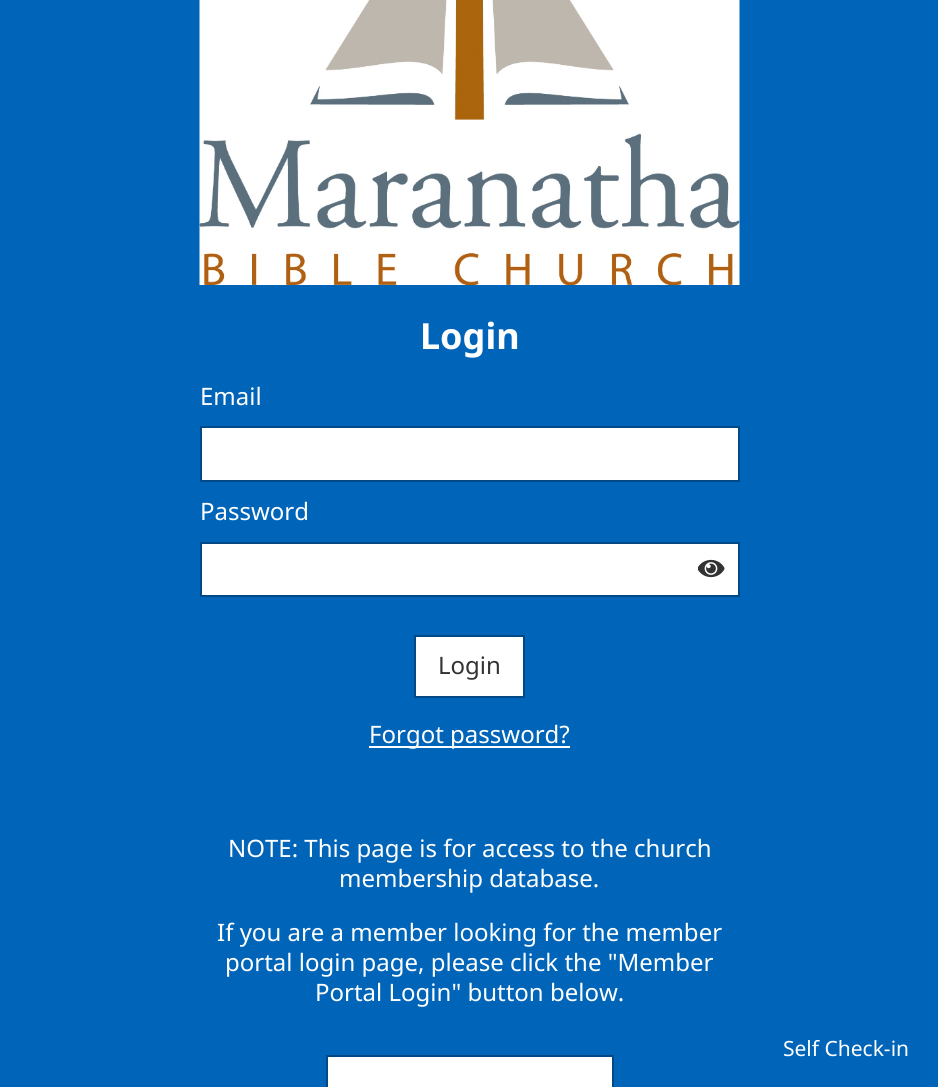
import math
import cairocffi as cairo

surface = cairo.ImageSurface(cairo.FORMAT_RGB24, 938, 1087)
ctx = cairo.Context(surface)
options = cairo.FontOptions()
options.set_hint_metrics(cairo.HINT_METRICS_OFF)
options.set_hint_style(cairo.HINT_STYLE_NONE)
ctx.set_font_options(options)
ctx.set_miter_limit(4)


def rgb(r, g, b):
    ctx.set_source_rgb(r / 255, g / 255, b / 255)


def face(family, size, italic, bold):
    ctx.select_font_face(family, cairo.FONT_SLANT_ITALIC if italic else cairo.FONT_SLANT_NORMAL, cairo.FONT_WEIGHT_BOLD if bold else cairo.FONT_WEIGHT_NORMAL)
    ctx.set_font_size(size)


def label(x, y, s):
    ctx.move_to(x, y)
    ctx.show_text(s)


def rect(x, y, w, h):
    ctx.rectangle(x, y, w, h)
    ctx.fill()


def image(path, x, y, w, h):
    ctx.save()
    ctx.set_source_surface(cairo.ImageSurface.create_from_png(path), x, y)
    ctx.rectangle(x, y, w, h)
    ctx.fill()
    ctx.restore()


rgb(0, 101, 184)
ctx.paint()
image('image0.png', 199, 0, 541, 285)
face('Noto Sans', 36, 0, 1)
rgb(255, 255, 255)
label(420, 349, 'Login')
face('Noto Sans', 24, 0, 0)
label(200, 405, 'Email')
ctx.rectangle(201, 427, 538, 54)
ctx.fill_preserve()
rgb(0, 73, 136)
ctx.stroke()
rgb(255, 255, 255)
label(200, 520, 'Password')
ctx.rectangle(201, 543, 538, 53)
ctx.fill_preserve()
rgb(0, 73, 136)
ctx.stroke()
image('image1.png', 698, 559, 27, 19)
rgb(255, 255, 255)
ctx.rectangle(415, 636, 109, 61)
ctx.fill_preserve()
rgb(0, 73, 136)
ctx.stroke()
rgb(51, 51, 51)
label(438, 674, 'Login')
rgb(255, 255, 255)
rect(369, 746, 201, 2)
label(369, 743, 'Forgot password?')
label(228, 857, 'NOTE: This page is for access to the church')
label(339, 887, 'membership database.')
label(217, 941, 'If you are a member looking for the member')
label(225, 971, 'portal login page, please click the "Member')
label(315, 1001, 'Portal Login" button below.')
ctx.rectangle(327, 1056, 286, 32)
ctx.fill_preserve()
rgb(0, 73, 136)
ctx.stroke()
face('Noto Sans', 21, 0, 0)
rgb(255, 255, 255)
label(783, 1056, 'Self Check-in')
surface.write_to_png('render.png')
